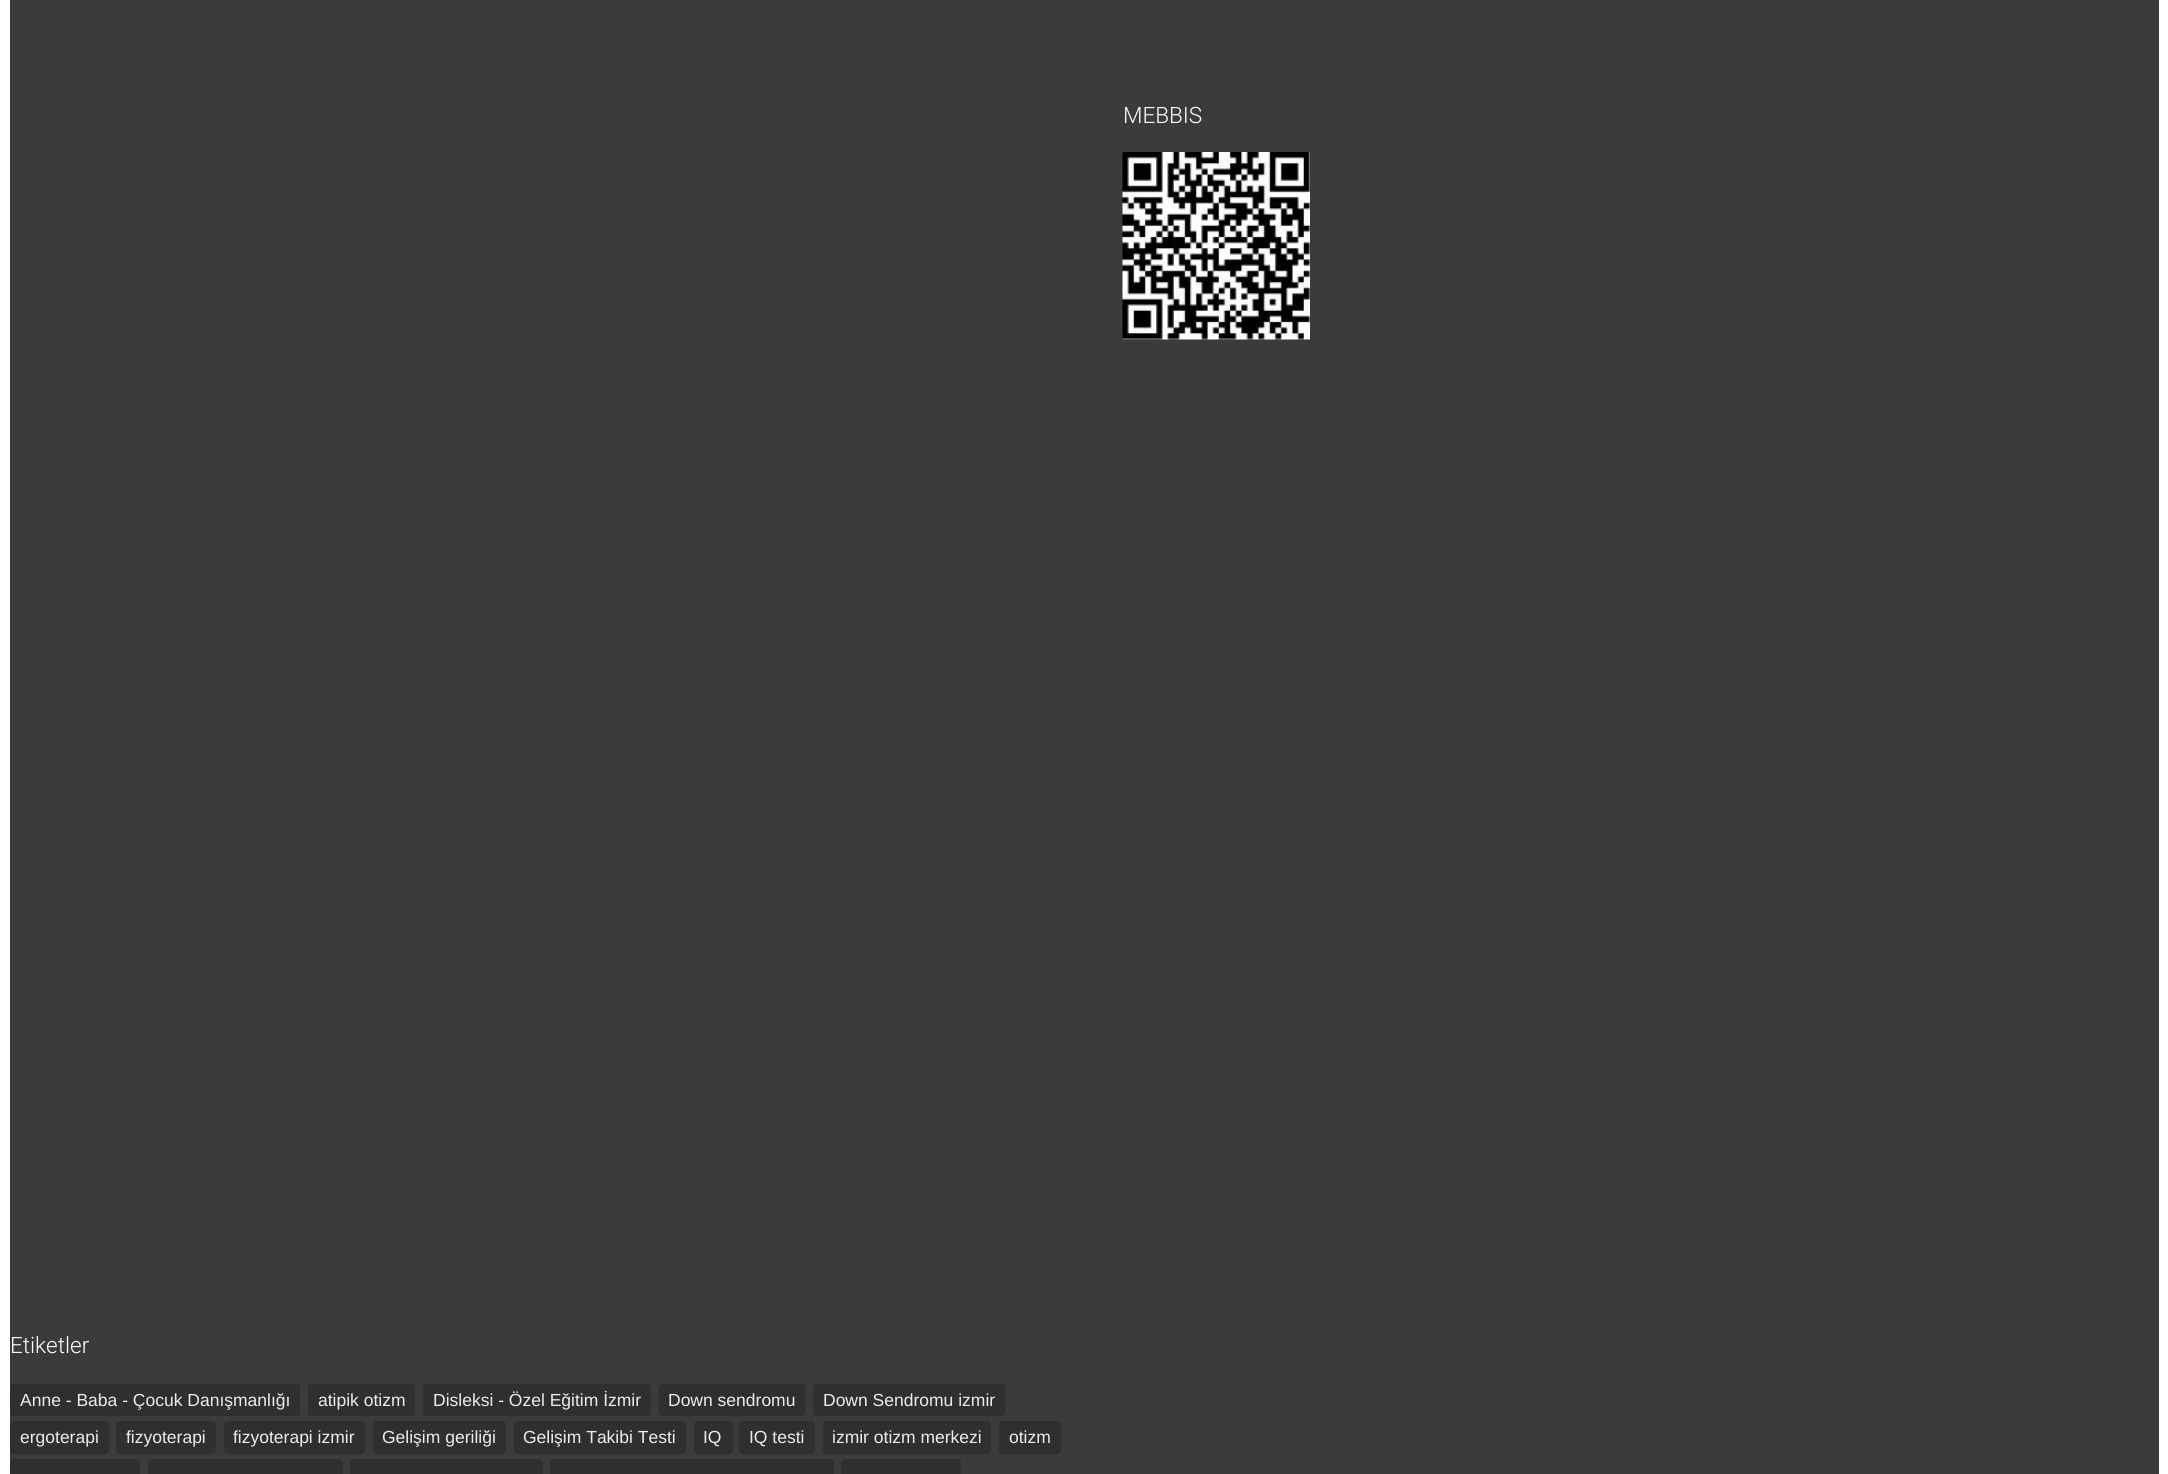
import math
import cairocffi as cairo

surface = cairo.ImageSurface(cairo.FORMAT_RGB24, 2168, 1474)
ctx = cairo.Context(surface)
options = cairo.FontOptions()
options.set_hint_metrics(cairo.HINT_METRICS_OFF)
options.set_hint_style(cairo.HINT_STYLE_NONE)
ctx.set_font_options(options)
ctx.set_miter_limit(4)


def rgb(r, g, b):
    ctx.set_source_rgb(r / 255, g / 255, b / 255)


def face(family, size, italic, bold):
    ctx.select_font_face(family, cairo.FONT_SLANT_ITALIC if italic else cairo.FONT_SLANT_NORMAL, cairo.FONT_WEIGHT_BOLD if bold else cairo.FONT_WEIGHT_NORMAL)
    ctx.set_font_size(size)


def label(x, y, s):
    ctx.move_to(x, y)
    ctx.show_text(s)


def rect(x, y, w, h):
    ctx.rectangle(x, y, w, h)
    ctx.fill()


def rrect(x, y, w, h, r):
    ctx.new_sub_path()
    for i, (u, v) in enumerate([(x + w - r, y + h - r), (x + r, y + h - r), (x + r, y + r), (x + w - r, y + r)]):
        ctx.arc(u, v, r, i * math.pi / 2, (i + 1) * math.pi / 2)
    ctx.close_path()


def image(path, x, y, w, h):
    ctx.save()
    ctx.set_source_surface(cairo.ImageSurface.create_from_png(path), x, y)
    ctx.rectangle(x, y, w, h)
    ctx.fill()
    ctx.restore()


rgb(255, 255, 255)
ctx.paint()
rgb(59, 59, 59)
rect(10, 0, 2149, 1474)
face('Roboto Light', 22.5, 0, 0)
rgb(253, 253, 253)
label(1123, 123, 'MEBBIS')
image('image0.png', 1122, 152, 188, 188)
label(10, 1353, 'Etiketler')
rgb(47, 47, 47)
rrect(10, 1384, 290, 32, 4)
ctx.fill()
face('Liberation Sans', 17.5, 0, 0)
rgb(236, 236, 236)
label(20, 1406, 'Anne - Baba - Çocuk Danışmanlığı')
rgb(47, 47, 47)
rrect(308, 1384, 107, 32, 4)
ctx.fill()
rgb(236, 236, 236)
label(318, 1406, 'atipik otizm')
rgb(47, 47, 47)
rrect(423, 1384, 228, 32, 4)
ctx.fill()
rgb(236, 236, 236)
label(433, 1406, 'Disleksi - Özel Eğitim İzmir')
rgb(47, 47, 47)
rrect(659, 1384, 146, 32, 4)
ctx.fill()
rgb(236, 236, 236)
label(668, 1406, 'Down sendromu')
rgb(47, 47, 47)
rrect(813, 1384, 192, 32, 4)
ctx.fill()
rgb(236, 236, 236)
label(823, 1406, 'Down Sendromu izmir')
rgb(47, 47, 47)
rrect(10, 1421, 99, 33, 4)
ctx.fill()
rgb(236, 236, 236)
label(20, 1443, 'ergoterapi')
rgb(47, 47, 47)
rrect(116, 1421, 100, 33, 4)
ctx.fill()
rgb(236, 236, 236)
label(126, 1443, 'fizyoterapi')
rgb(47, 47, 47)
rrect(224, 1421, 141, 33, 4)
ctx.fill()
rgb(236, 236, 236)
label(233, 1443, 'fizyoterapi izmir')
rgb(47, 47, 47)
rrect(373, 1421, 133, 33, 4)
ctx.fill()
rgb(236, 236, 236)
label(382, 1443, 'Gelişim geriliği')
rgb(47, 47, 47)
rrect(514, 1421, 172, 33, 4)
ctx.fill()
rgb(236, 236, 236)
label(523, 1443, 'Gelişim Takibi Testi')
rgb(47, 47, 47)
rrect(694, 1421, 39, 33, 4)
ctx.fill()
rgb(236, 236, 236)
label(703, 1443, 'IQ')
rgb(47, 47, 47)
rrect(739, 1421, 76, 33, 4)
ctx.fill()
rgb(236, 236, 236)
label(749, 1443, 'IQ testi')
rgb(47, 47, 47)
rrect(823, 1421, 168, 33, 4)
ctx.fill()
rgb(236, 236, 236)
label(832, 1443, 'izmir otizm merkezi')
rgb(47, 47, 47)
rrect(999, 1421, 62, 33, 4)
ctx.fill()
rgb(236, 236, 236)
label(1009, 1443, 'otizm')
rgb(47, 47, 47)
rrect(10, 1459, 130, 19, 4)
ctx.fill()
rrect(148, 1459, 195, 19, 4)
ctx.fill()
rrect(350, 1459, 193, 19, 4)
ctx.fill()
rrect(550, 1459, 284, 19, 4)
ctx.fill()
rrect(841, 1459, 120, 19, 4)
ctx.fill()
surface.write_to_png('render.png')
